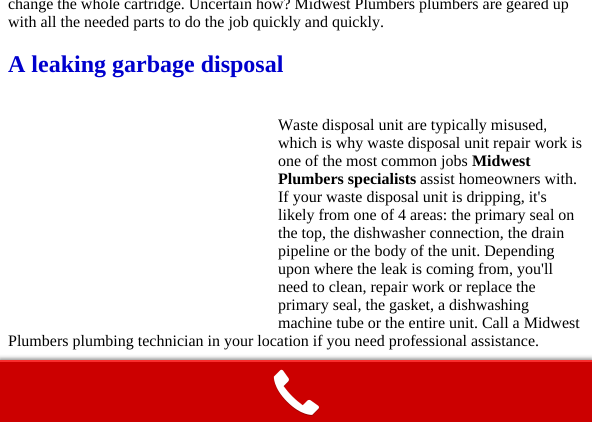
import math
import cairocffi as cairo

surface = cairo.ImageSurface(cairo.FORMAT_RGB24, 592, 422)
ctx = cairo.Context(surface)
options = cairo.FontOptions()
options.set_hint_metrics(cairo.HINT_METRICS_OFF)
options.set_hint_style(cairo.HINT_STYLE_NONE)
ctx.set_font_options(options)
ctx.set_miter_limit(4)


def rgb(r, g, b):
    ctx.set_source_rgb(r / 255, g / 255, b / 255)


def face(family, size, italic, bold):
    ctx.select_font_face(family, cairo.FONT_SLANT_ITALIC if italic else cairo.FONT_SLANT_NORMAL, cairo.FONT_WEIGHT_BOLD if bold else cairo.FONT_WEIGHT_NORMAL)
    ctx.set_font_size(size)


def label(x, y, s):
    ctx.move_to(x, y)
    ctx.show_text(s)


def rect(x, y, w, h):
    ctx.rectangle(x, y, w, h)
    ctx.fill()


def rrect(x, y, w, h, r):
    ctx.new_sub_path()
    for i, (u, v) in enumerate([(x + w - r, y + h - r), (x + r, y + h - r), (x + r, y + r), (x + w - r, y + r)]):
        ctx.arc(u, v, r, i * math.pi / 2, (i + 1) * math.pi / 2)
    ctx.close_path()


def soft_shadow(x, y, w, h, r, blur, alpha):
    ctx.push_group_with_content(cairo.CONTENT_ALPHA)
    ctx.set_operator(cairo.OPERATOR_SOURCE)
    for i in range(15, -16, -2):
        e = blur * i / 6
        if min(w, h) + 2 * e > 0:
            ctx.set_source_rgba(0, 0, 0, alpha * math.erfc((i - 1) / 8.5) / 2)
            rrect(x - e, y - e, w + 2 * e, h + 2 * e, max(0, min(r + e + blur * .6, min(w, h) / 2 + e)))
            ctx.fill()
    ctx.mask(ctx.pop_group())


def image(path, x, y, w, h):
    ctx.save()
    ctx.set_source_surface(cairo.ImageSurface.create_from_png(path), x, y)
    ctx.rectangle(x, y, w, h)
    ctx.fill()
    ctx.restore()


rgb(255, 255, 255)
ctx.paint()
face('Liberation Serif', 16, 0, 0)
rgb(0, 0, 0)
label(8, 9, 'change the whole cartridge. Uncertain how? Midwest Plumbers plumbers are geared up')
label(8, 27, 'with all the needed parts to do the job quickly and quickly.')
face('Liberation Serif', 24, 0, 1)
rgb(0, 0, 205)
label(8, 72, 'A leaking garbage disposal')
face('Liberation Serif', 16, 0, 0)
rgb(0, 0, 0)
label(278, 130, 'Waste disposal unit are typically misused,')
label(278, 148, 'which is why waste disposal unit repair work is')
label(278, 166, 'one of the most common jobs')
face('Liberation Serif', 16, 0, 1)
label(472, 166, 'Midwest')
label(278, 184, 'Plumbers specialists')
face('Liberation Serif', 16, 0, 0)
label(420, 184, 'assist homeowners with.')
label(278, 202, 'If your waste disposal unit is dripping, it\'s')
label(278, 220, 'likely from one of 4 areas: the primary seal on')
label(278, 238, 'the top, the dishwasher connection, the drain')
label(278, 256, 'pipeline or the body of the unit. Depending')
label(278, 274, 'upon where the leak is coming from, you\'ll')
label(278, 292, 'need to clean, repair work or replace the')
label(278, 310, 'primary seal, the gasket, a dishwashing')
label(278, 328, 'machine tube or the entire unit. Call a Midwest')
label(8, 346, 'Plumbers plumbing technician in your location if you need professional assistance.')
rgb(136, 136, 136)
soft_shadow(0, 360, 592, 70, 0, 2.5, 1)
soft_shadow(0, 360, 592, 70, 0, 2.5, 1)
rgb(204, 0, 0)
rect(0, 362, 592, 60)
image('image0.png', 273, 369, 46, 47)
rgb(249, 45, 45)
rect(0, 360, 592, 2)
surface.write_to_png('render.png')
